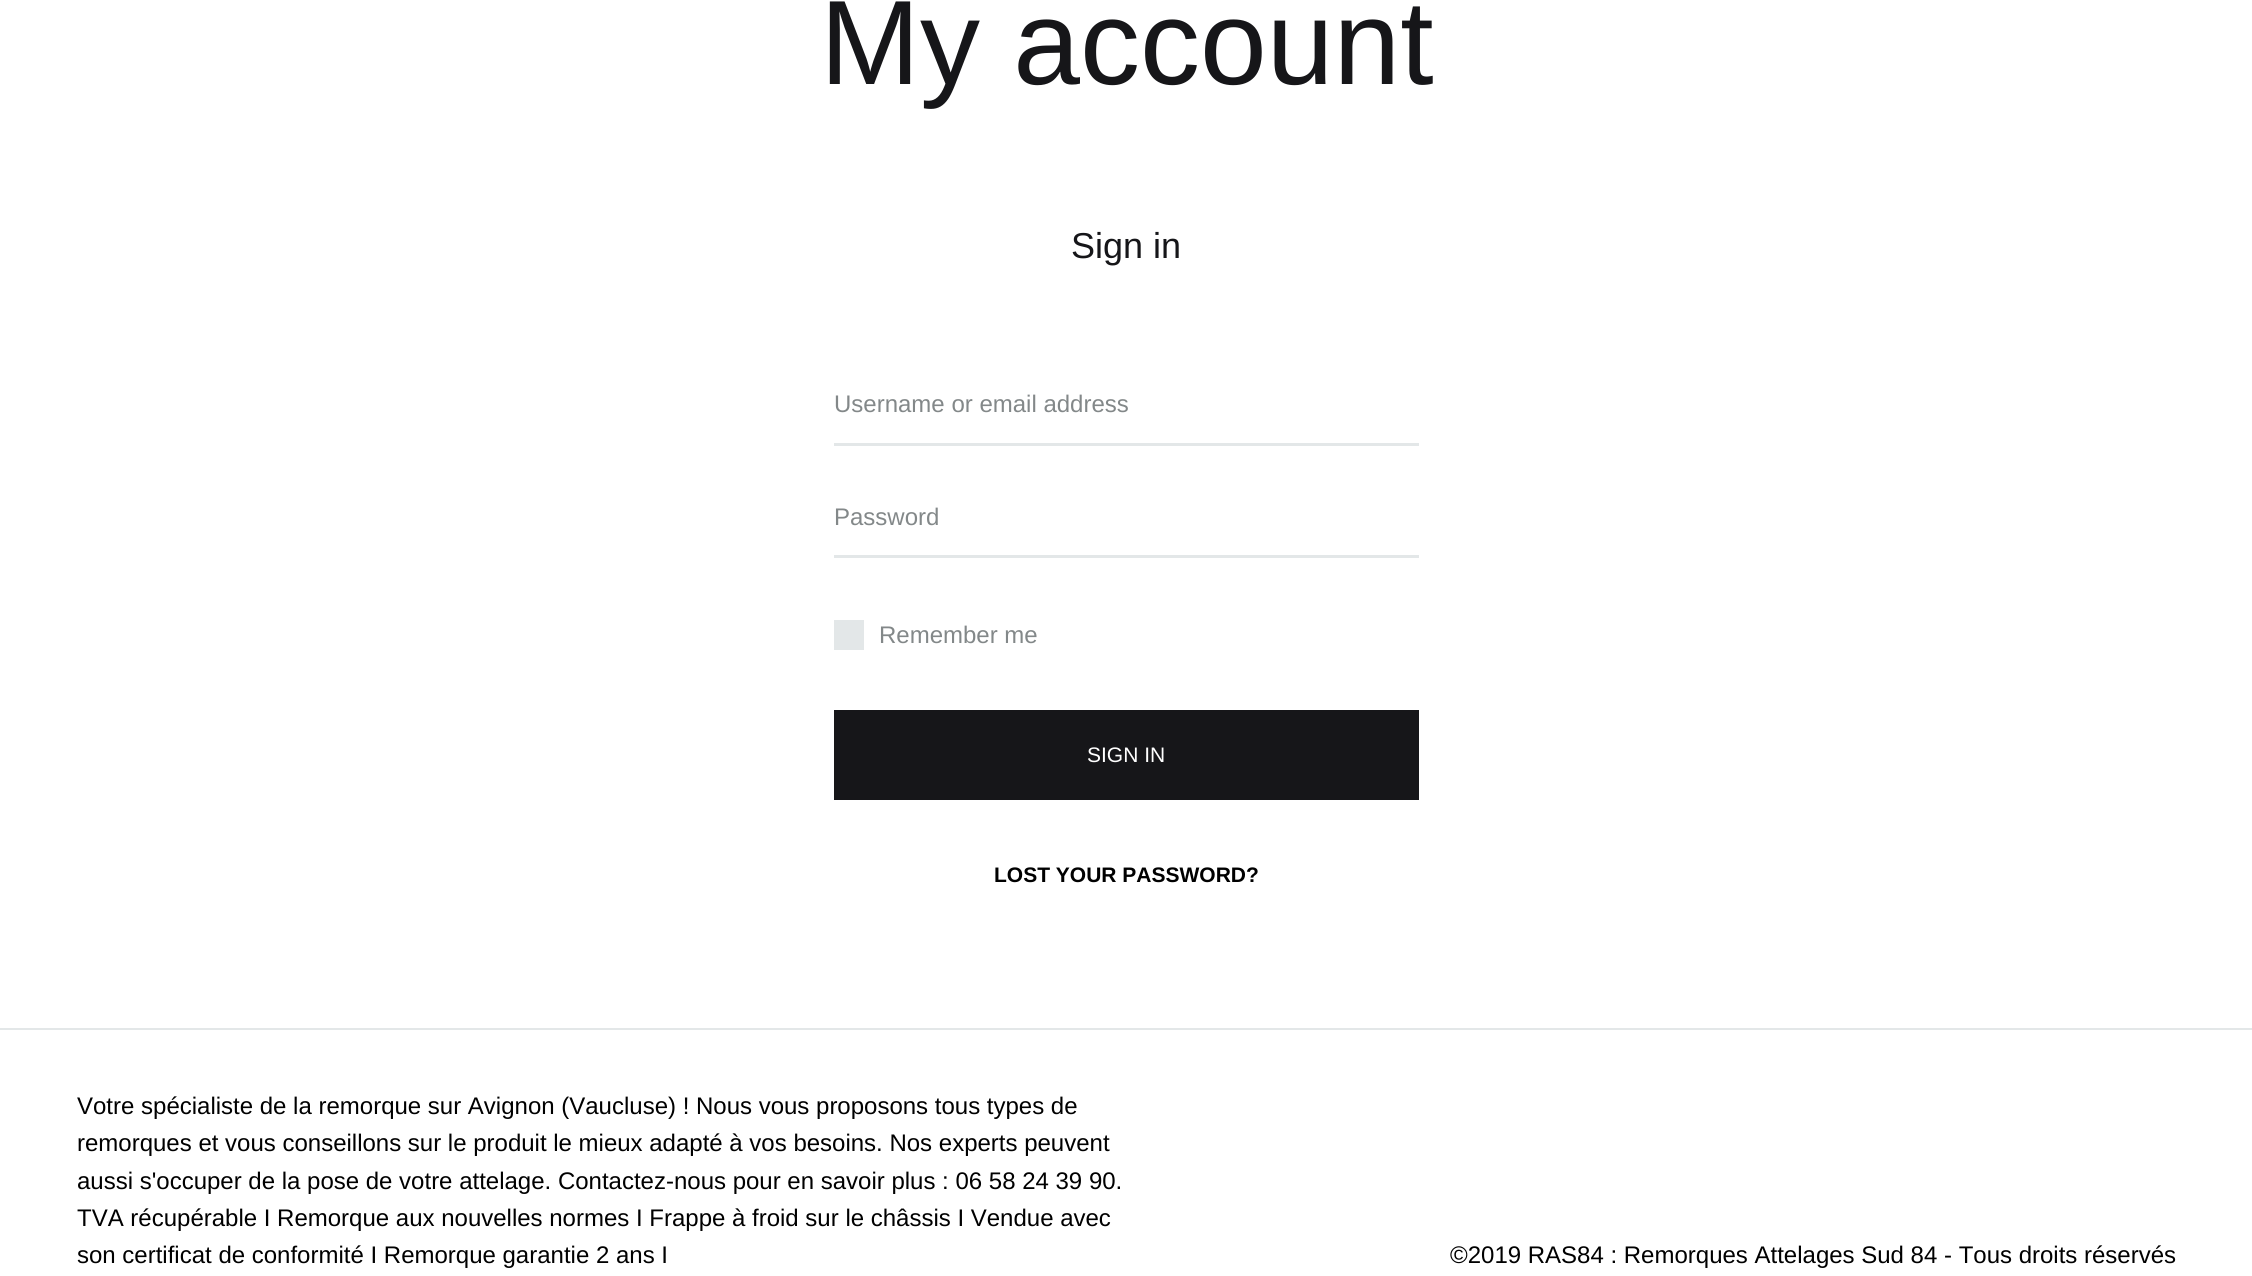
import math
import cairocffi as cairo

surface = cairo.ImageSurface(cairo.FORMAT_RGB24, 2252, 1276)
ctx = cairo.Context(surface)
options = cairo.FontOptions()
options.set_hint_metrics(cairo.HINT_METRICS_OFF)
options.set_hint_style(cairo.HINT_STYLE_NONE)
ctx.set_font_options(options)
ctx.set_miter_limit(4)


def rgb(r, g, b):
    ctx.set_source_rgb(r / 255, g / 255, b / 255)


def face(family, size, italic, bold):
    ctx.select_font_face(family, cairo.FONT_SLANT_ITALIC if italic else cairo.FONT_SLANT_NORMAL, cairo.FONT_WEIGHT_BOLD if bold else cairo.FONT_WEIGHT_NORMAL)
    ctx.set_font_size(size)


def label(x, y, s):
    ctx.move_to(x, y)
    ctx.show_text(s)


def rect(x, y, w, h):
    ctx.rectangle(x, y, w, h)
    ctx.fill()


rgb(255, 255, 255)
ctx.paint()
face('Liberation Sans', 120, 0, 0)
rgb(22, 22, 25)
label(820, 84, 'My account')
face('Liberation Sans', 36, 0, 0)
label(1071, 258, 'Sign in')
face('Liberation Sans', 24, 0, 0)
rgb(131, 136, 137)
label(834, 412, 'Username or email address')
rgb(227, 231, 232)
rect(834, 443, 585, 3)
rgb(131, 136, 137)
label(834, 525, 'Password')
rgb(227, 231, 232)
rect(834, 555, 585, 3)
rect(834, 620, 30, 30)
rgb(131, 136, 137)
label(879, 643, 'Remember me')
rgb(22, 22, 25)
rect(834, 710, 585, 90)
face('Liberation Sans', 21, 0, 0)
rgb(255, 255, 255)
label(1087, 762, 'SIGN IN')
face('Liberation Sans', 21, 0, 1)
rgb(0, 0, 0)
label(994, 882, 'LOST YOUR PASSWORD?')
rgb(227, 231, 232)
rect(0, 1028, 2252, 2)
face('Liberation Sans', 24, 0, 0)
rgb(0, 0, 0)
label(77, 1114, 'Votre spécialiste de la remorque sur Avignon (Vaucluse) ! Nous vous proposons tous types de')
label(77, 1151, 'remorques et vous conseillons sur le produit le mieux adapté à vos besoins. Nos experts peuvent')
label(77, 1189, 'aussi s\'occuper de la pose de votre attelage. Contactez-nous pour en savoir plus : 06 58 24 39 90.')
label(77, 1226, 'TVA récupérable I Remorque aux nouvelles normes I Frappe à froid sur le châssis I Vendue avec')
label(77, 1263, 'son certificat de conformité I Remorque garantie 2 ans I')
label(1450, 1263, '©2019 RAS84 : Remorques Attelages Sud 84 - Tous droits réservés')
surface.write_to_png('render.png')
